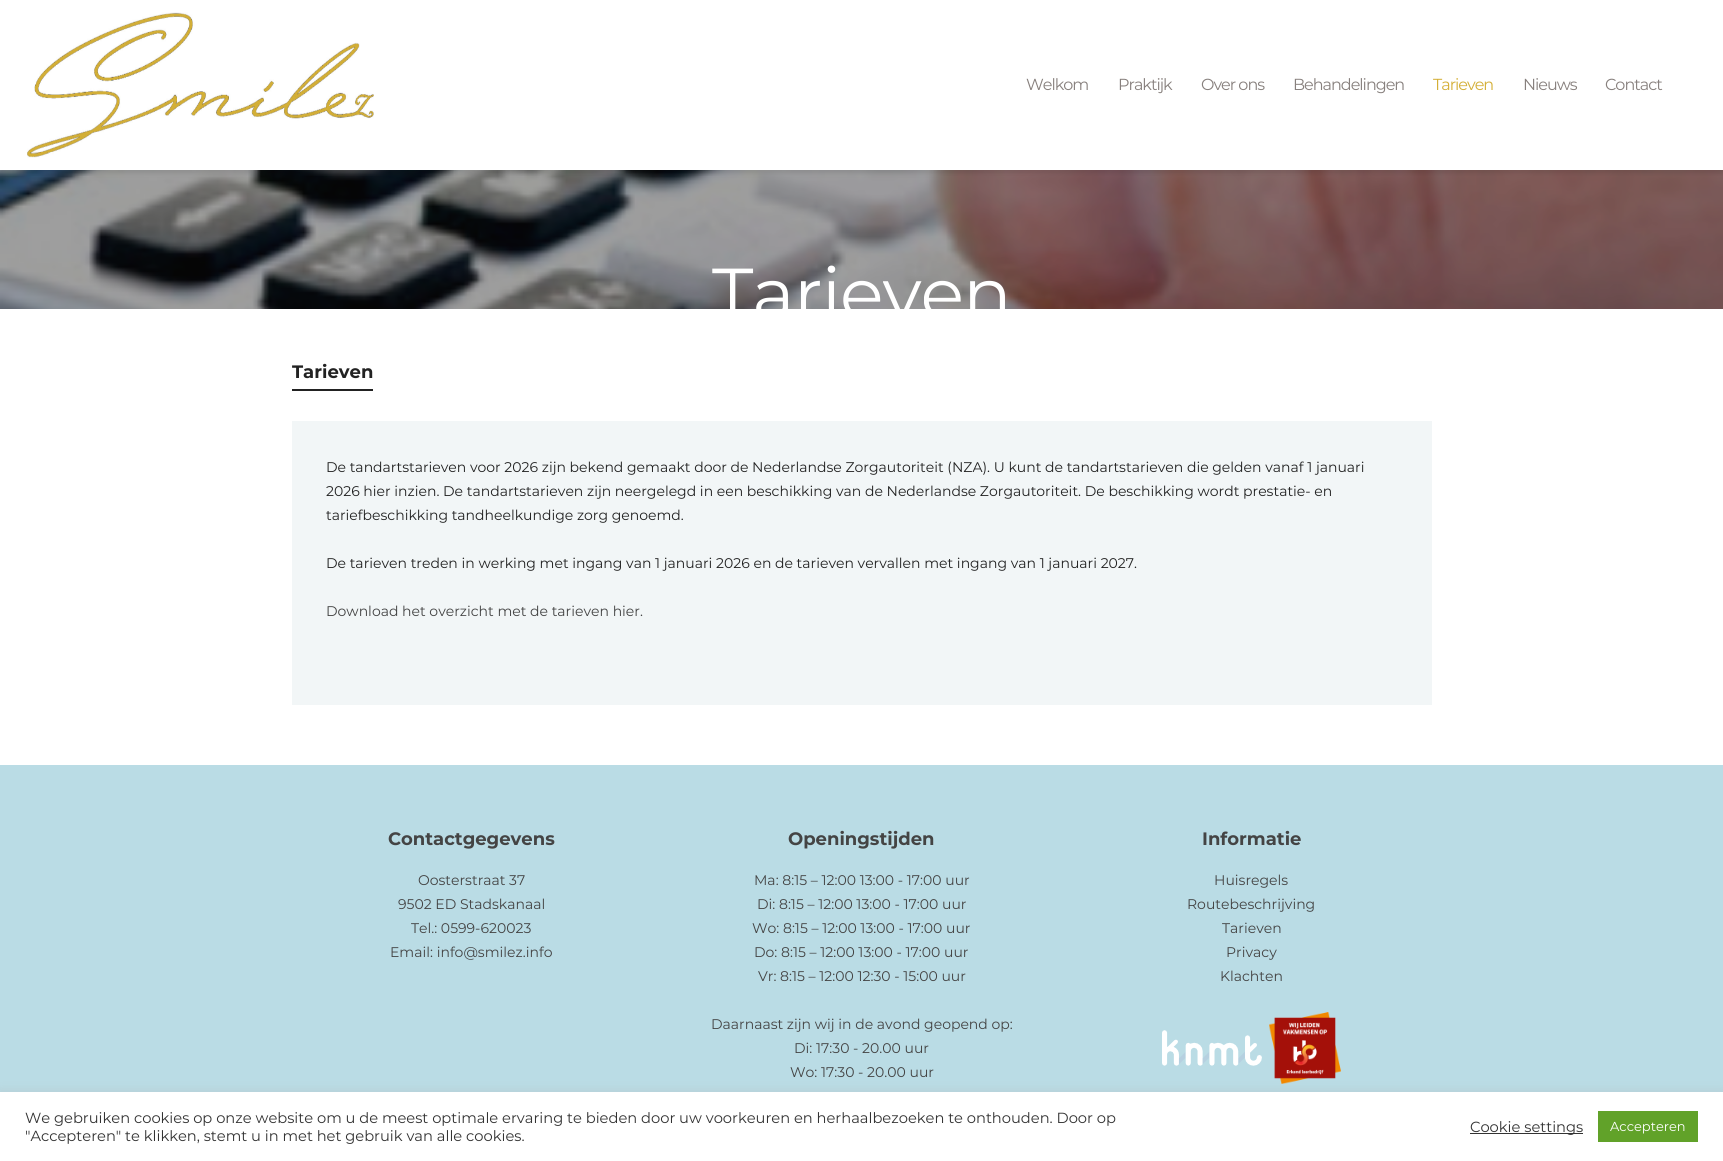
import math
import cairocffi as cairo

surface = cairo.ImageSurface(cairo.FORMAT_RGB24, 1723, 1161)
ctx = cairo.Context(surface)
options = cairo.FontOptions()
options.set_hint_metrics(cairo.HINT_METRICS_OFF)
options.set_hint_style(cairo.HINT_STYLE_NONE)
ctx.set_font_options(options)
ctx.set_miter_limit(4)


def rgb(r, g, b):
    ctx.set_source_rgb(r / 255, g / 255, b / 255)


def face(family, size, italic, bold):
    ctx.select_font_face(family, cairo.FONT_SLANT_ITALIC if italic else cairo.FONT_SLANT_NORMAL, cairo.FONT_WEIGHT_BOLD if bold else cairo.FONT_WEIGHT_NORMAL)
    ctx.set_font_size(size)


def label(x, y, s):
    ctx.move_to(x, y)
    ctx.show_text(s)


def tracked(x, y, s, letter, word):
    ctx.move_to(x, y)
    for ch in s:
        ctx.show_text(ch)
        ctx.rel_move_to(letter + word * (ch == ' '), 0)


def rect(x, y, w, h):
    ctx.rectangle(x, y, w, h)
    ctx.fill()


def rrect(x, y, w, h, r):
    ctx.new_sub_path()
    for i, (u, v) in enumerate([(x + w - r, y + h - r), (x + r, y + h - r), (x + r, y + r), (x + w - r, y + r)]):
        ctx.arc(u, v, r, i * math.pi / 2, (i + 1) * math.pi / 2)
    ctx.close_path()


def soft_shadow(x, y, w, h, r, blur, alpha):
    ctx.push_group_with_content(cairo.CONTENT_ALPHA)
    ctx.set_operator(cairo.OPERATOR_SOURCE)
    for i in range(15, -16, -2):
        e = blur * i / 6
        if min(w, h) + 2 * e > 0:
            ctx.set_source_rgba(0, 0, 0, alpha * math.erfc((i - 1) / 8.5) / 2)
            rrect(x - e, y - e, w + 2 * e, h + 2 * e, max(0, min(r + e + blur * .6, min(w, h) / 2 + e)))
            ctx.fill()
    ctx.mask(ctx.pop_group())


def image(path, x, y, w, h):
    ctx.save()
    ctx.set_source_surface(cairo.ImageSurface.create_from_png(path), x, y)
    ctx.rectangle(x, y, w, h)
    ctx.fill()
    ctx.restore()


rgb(255, 255, 255)
ctx.paint()
image('image1.png', 0, 170, 1723, 139)
rgb(0, 0, 0)
soft_shadow(0, 3, 1723, 170, 0, 2.5, 0.1)
rgb(255, 255, 255)
rect(0, 0, 1723, 170)
image('image0.png', 27, 12, 347, 146)
face('Montserrat', 16, 0, 0)
rgb(135, 128, 125)
tracked(1026, 90, 'Welkom', -1, 0)
tracked(1118, 90, 'Praktijk', -1, 0)
tracked(1201, 90, 'Over ons', -1, 0)
tracked(1293, 90, 'Behandelingen', -1, 0)
rgb(212, 175, 55)
tracked(1433, 90, 'Tarieven', -1, 0)
rgb(135, 128, 125)
tracked(1523, 90, 'Nieuws', -1, 0)
tracked(1605, 90, 'Contact', -1, 0)
ctx.save()
ctx.rectangle(0, 0, 1723, 309)
ctx.clip()
face('Montserrat', 72, 0, 0)
rgb(255, 255, 255)
tracked(712, 319, 'Tarieven', -1, 0)
ctx.restore()
rgb(34, 34, 34)
rect(292, 389, 81, 2)
ctx.save()
ctx.rectangle(292, 359, 81, 32)
ctx.clip()
face('Montserrat', 18, 0, 1)
label(292, 378, 'Tarieven')
ctx.restore()
rgb(242, 246, 247)
rect(292, 421, 1140, 284)
face('Montserrat', 14, 0, 0)
rgb(34, 34, 34)
label(326, 472, 'De tandartstarieven voor 2026 zijn bekend gemaakt door de Nederlandse Zorgautoriteit (NZA). U kunt de tandartstarieven die gelden vanaf 1 januari')
label(326, 496, '2026 hier inzien. De tandartstarieven zijn neergelegd in een beschikking van de Nederlandse Zorgautoriteit. De beschikking wordt prestatie- en')
label(326, 520, 'tariefbeschikking tandheelkundige zorg genoemd.')
label(326, 568, 'De tarieven treden in werking met ingang van 1 januari 2026 en de tarieven vervallen met ingang van 1 januari 2027.')
rgb(68, 68, 68)
label(326, 616, 'Download het overzicht met de tarieven hier.')
rgb(186, 220, 229)
rect(0, 765, 1723, 327)
face('Montserrat', 18, 0, 1)
rgb(68, 68, 68)
label(388, 845, 'Contactgegevens')
face('Montserrat', 14, 0, 0)
label(418, 885, 'Oosterstraat 37')
label(398, 909, '9502 ED Stadskanaal')
label(411, 933, 'Tel.: 0599-620023')
label(390, 957, 'Email: info@smilez.info')
face('Montserrat', 18, 0, 1)
label(788, 845, 'Openingstijden')
face('Montserrat', 14, 0, 0)
label(754, 885, 'Ma: 8:15 – 12:00 13:00 - 17:00 uur')
label(757, 909, 'Di: 8:15 – 12:00 13:00 - 17:00 uur')
label(752, 933, 'Wo: 8:15 – 12:00 13:00 - 17:00 uur')
label(754, 957, 'Do: 8:15 – 12:00 13:00 - 17:00 uur')
label(758, 981, 'Vr: 8:15 – 12:00 12:30 - 15:00 uur')
label(711, 1029, 'Daarnaast zijn wij in de avond geopend op:')
label(794, 1053, 'Di: 17:30 - 20.00 uur')
label(790, 1077, 'Wo: 17:30 - 20.00 uur')
face('Montserrat', 18, 0, 1)
label(1202, 845, 'Informatie')
face('Montserrat', 14, 0, 0)
label(1214, 885, 'Huisregels')
label(1187, 909, 'Routebeschrijving')
label(1222, 933, 'Tarieven')
label(1226, 957, 'Privacy')
label(1220, 981, 'Klachten')
image('image2.png', 1162, 1030, 100, 36)
image('image3.png', 1269, 1012, 72, 72)
rgb(172, 171, 171)
soft_shadow(0, 1091, 1723, 69, 0, 5, 0.3)
rgb(255, 255, 255)
rect(0, 1092, 1723, 69)
face('Montserrat', 14.67, 0, 0)
rgb(51, 51, 51)
label(25, 1123, 'We gebruiken cookies op onze website om u de meest optimale ervaring te bieden door uw voorkeuren en herhaalbezoeken te onthouden. Door op')
label(25, 1141, '"Accepteren" te klikken, stemt u in met het gebruik van alle cookies.')
rect(1470, 1133, 113, 1)
label(1470, 1132, 'Cookie settings')
rgb(97, 162, 41)
rect(1598, 1111, 100, 31)
face('Montserrat', 13, 0, 0)
rgb(255, 255, 255)
label(1610, 1131, 'Accepteren')
surface.write_to_png('render.png')
